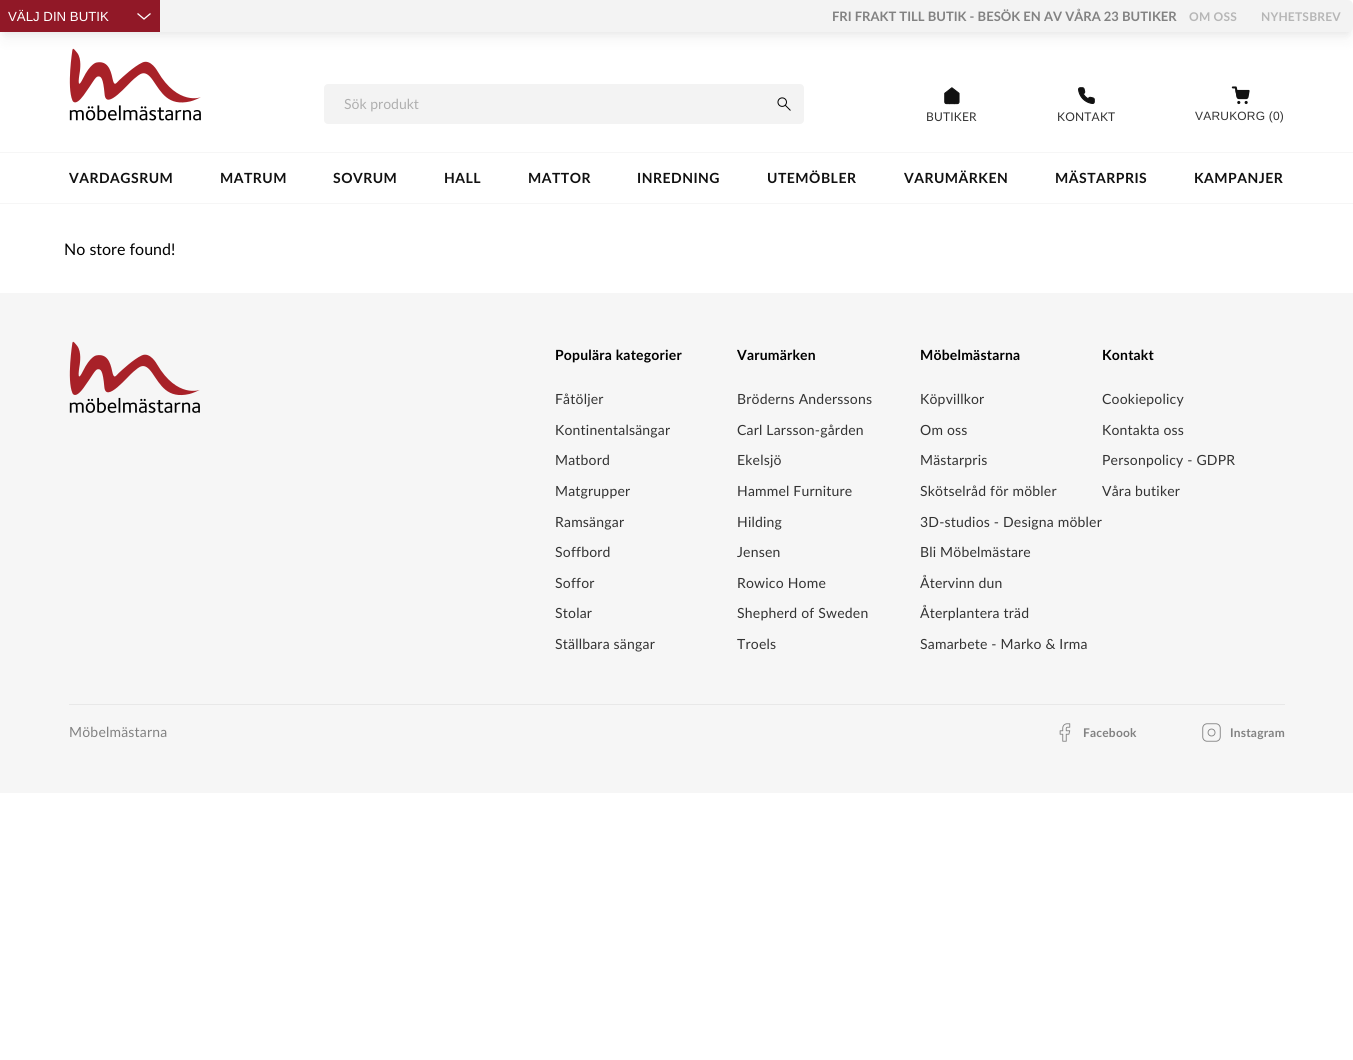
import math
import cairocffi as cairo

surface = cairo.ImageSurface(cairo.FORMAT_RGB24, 1353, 1060)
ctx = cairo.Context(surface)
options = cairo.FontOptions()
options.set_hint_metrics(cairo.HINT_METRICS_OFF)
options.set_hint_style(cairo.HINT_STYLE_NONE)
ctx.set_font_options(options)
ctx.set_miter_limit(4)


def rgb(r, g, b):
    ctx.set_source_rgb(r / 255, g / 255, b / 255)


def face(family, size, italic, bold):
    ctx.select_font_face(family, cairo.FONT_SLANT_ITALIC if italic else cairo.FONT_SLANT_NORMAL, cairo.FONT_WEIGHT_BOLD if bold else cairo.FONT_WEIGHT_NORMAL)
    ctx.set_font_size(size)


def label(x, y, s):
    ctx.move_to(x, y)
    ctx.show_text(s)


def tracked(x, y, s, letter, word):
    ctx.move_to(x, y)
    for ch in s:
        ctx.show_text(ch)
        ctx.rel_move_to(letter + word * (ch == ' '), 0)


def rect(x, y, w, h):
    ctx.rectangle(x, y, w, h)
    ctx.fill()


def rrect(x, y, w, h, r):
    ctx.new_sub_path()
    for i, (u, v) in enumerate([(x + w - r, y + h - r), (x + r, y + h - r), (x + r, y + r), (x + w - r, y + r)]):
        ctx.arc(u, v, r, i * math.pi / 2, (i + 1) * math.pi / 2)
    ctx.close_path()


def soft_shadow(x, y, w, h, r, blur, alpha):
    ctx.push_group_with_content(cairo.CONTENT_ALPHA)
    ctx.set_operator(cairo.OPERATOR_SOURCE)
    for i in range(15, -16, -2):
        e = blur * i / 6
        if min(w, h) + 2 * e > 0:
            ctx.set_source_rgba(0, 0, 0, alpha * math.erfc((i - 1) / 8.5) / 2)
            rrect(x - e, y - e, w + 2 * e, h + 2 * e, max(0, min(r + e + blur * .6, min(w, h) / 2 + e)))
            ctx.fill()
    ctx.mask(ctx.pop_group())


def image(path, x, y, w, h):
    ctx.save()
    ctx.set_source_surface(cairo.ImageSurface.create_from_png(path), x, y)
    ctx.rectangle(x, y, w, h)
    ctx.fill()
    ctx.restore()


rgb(255, 255, 255)
ctx.paint()
rgb(0, 0, 0)
soft_shadow(2, 6, 1349, 28, 3, 3, 0.05)
image('image0.png', 69, 48, 132, 73)
soft_shadow(3, 13, 1347, 26, 2, 7.5, 0.05)
rgb(243, 243, 243)
rrect(0, 0, 1353, 32, 5)
ctx.fill()
rgb(145, 24, 39)
rect(0, 0, 160, 32)
face('Liberation Sans', 13.25, 0, 0)
rgb(255, 255, 255)
label(8, 21, 'VÄLJ DIN BUTIK')
ctx.new_path()
ctx.move_to(137.5, 13.5)
ctx.line_to(144, 19)
ctx.line_to(150.5, 13.5)
ctx.set_line_width(1.3)
ctx.stroke()
face('Lato', 13, 0, 1)
rgb(130, 130, 130)
label(832, 21, 'FRI FRAKT TILL BUTIK - BESÖK EN AV VÅRA 23 BUTIKER')
face('Lato', 12, 0, 1)
rgb(182, 182, 182)
tracked(1189, 21, 'OM OSS', 0.2, 0)
tracked(1261, 21, 'NYHETSBREV', 0.2, 0)
rgb(243, 243, 243)
rrect(324, 84, 480, 40, 4)
ctx.fill()
face('Lato', 14, 0, 0)
rgb(175, 175, 175)
label(344, 109, 'Sök produkt')
image('image1.png', 777, 97, 14, 14)
image('image2.png', 944, 87, 16, 18)
face('Lato', 12, 0, 0)
rgb(51, 51, 51)
tracked(926, 121, 'BUTIKER', 0.2, 0)
image('image3.png', 1078, 87, 17, 17)
tracked(1057, 121, 'KONTAKT', 0.2, 0)
image('image4.png', 1231, 86, 19, 19)
face('Liberation Sans', 12, 0, 0)
tracked(1195, 120, 'VARUKORG (0)', 0.2, 0)
rgb(246, 246, 246)
rect(0, 152, 1353, 1)
rect(0, 203, 1353, 1)
face('Lato', 14, 0, 1)
rgb(17, 17, 17)
tracked(69, 183, 'VARDAGSRUM', 0.5, 0)
tracked(220, 183, 'MATRUM', 0.5, 0)
tracked(333, 183, 'SOVRUM', 0.5, 0)
tracked(444, 183, 'HALL', 0.5, 0)
tracked(528, 183, 'MATTOR', 0.5, 0)
tracked(637, 183, 'INREDNING', 0.5, 0)
tracked(767, 183, 'UTEMÖBLER', 0.5, 0)
tracked(904, 183, 'VARUMÄRKEN', 0.5, 0)
tracked(1055, 183, 'MÄSTARPRIS', 0.5, 0)
tracked(1194, 183, 'KAMPANJER', 0.5, 0)
face('Lato', 16, 0, 0)
rgb(0, 0, 0)
label(64, 255, 'No store found!')
rgb(246, 246, 246)
rect(0, 293, 1353, 500)
image('image5.png', 69, 341, 131, 72)
face('Lato', 14, 0, 1)
rgb(0, 0, 0)
tracked(555, 360, 'Populära kategorier', 0.2, 0)
face('Lato', 14, 0, 0)
rgb(51, 51, 51)
tracked(555, 404, 'Fåtöljer', 0.2, 0)
tracked(555, 435, 'Kontinentalsängar', 0.2, 0)
tracked(555, 465, 'Matbord', 0.2, 0)
tracked(555, 496, 'Matgrupper', 0.2, 0)
tracked(555, 527, 'Ramsängar', 0.2, 0)
tracked(555, 557, 'Soffbord', 0.2, 0)
tracked(555, 588, 'Soffor', 0.2, 0)
tracked(555, 618, 'Stolar', 0.2, 0)
tracked(555, 649, 'Ställbara sängar', 0.2, 0)
face('Lato', 14, 0, 1)
rgb(0, 0, 0)
tracked(737, 360, 'Varumärken', 0.2, 0)
face('Lato', 14, 0, 0)
rgb(51, 51, 51)
tracked(737, 404, 'Bröderns Anderssons', 0.2, 0)
tracked(737, 435, 'Carl Larsson-gården', 0.2, 0)
tracked(737, 465, 'Ekelsjö', 0.2, 0)
tracked(737, 496, 'Hammel Furniture', 0.2, 0)
tracked(737, 527, 'Hilding', 0.2, 0)
tracked(737, 557, 'Jensen', 0.2, 0)
tracked(737, 588, 'Rowico Home', 0.2, 0)
tracked(737, 618, 'Shepherd of Sweden', 0.2, 0)
tracked(737, 649, 'Troels', 0.2, 0)
face('Lato', 14, 0, 1)
rgb(0, 0, 0)
tracked(920, 360, 'Möbelmästarna', 0.2, 0)
face('Lato', 14, 0, 0)
rgb(51, 51, 51)
tracked(920, 404, 'Köpvillkor', 0.2, 0)
tracked(920, 435, 'Om oss', 0.2, 0)
tracked(920, 465, 'Mästarpris', 0.2, 0)
tracked(920, 496, 'Skötselråd för möbler', 0.2, 0)
tracked(920, 527, '3D-studios - Designa möbler', 0.2, 0)
tracked(920, 557, 'Bli Möbelmästare', 0.2, 0)
tracked(920, 588, 'Återvinn dun', 0.2, 0)
tracked(920, 618, 'Återplantera träd', 0.2, 0)
tracked(920, 649, 'Samarbete - Marko & Irma', 0.2, 0)
face('Lato', 14, 0, 1)
rgb(0, 0, 0)
tracked(1102, 360, 'Kontakt', 0.2, 0)
face('Lato', 14, 0, 0)
rgb(51, 51, 51)
tracked(1102, 404, 'Cookiepolicy', 0.2, 0)
tracked(1102, 435, 'Kontakta oss', 0.2, 0)
tracked(1102, 465, 'Personpolicy - GDPR', 0.2, 0)
tracked(1102, 496, 'Våra butiker', 0.2, 0)
rgb(232, 232, 232)
rect(69, 704, 1216, 1)
rgb(130, 130, 130)
tracked(69, 737, 'Möbelmästarna', 0.2, 0)
image('image6.png', 1059, 723, 12, 19)
face('Lato', 12, 0, 1)
tracked(1083, 737, 'Facebook', 0.2, 0)
image('image7.png', 1202, 723, 19, 19)
tracked(1230, 737, 'Instagram', 0.2, 0)
surface.write_to_png('render.png')
